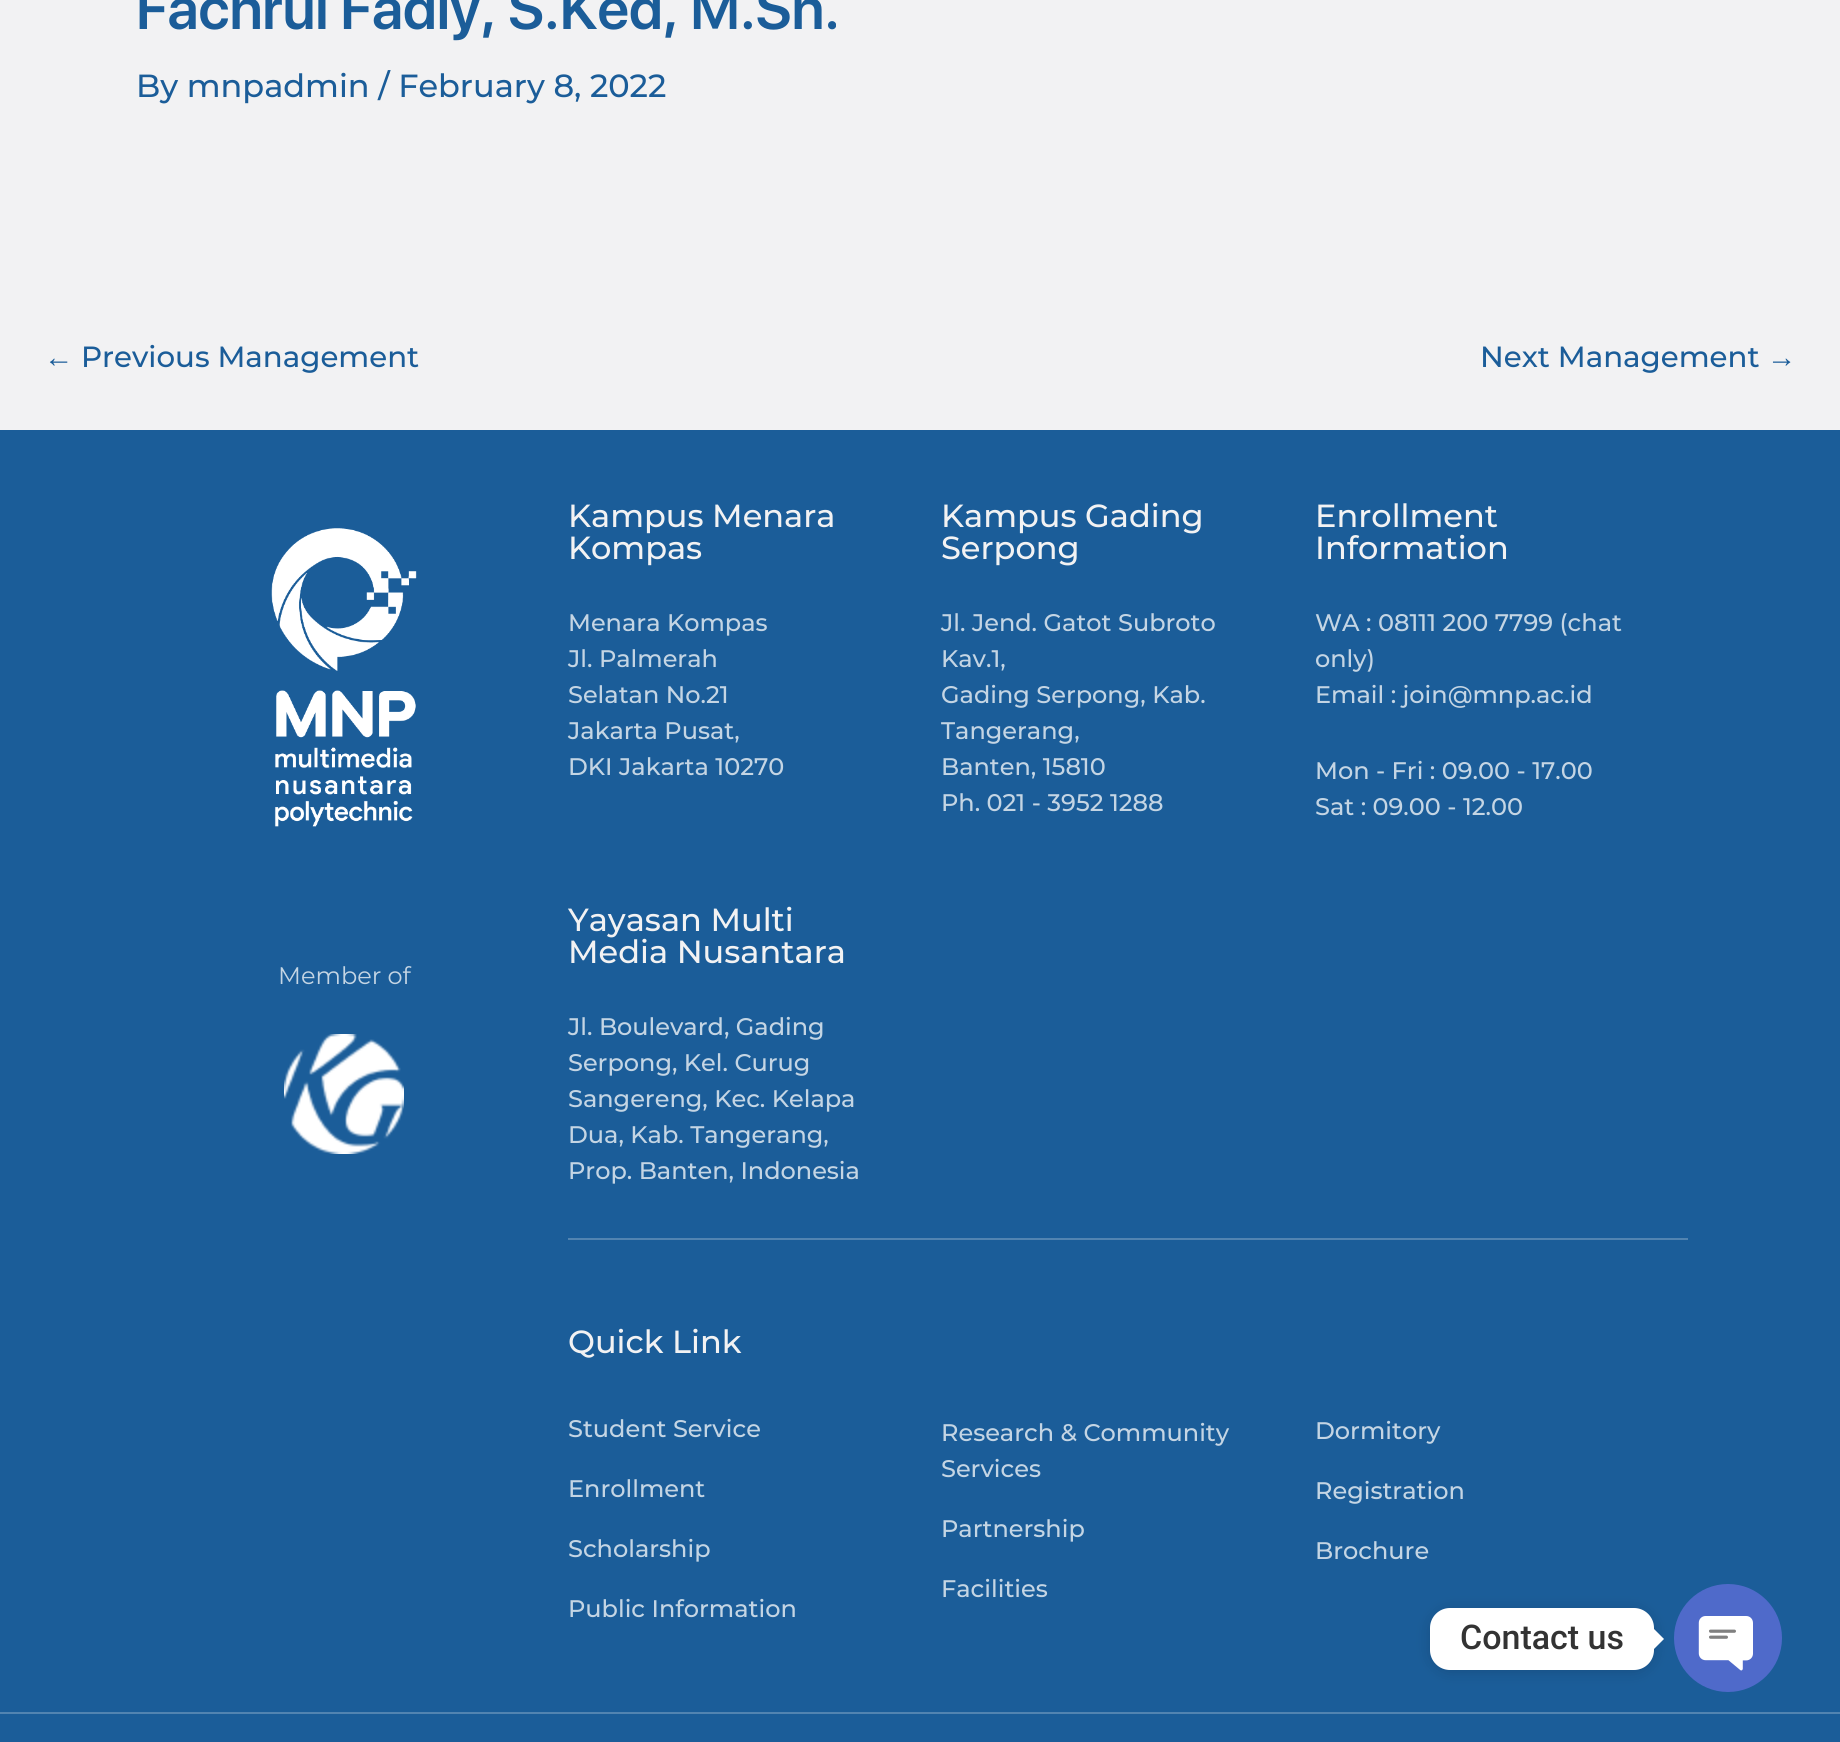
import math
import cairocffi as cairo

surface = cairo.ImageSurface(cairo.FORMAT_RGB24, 1840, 1742)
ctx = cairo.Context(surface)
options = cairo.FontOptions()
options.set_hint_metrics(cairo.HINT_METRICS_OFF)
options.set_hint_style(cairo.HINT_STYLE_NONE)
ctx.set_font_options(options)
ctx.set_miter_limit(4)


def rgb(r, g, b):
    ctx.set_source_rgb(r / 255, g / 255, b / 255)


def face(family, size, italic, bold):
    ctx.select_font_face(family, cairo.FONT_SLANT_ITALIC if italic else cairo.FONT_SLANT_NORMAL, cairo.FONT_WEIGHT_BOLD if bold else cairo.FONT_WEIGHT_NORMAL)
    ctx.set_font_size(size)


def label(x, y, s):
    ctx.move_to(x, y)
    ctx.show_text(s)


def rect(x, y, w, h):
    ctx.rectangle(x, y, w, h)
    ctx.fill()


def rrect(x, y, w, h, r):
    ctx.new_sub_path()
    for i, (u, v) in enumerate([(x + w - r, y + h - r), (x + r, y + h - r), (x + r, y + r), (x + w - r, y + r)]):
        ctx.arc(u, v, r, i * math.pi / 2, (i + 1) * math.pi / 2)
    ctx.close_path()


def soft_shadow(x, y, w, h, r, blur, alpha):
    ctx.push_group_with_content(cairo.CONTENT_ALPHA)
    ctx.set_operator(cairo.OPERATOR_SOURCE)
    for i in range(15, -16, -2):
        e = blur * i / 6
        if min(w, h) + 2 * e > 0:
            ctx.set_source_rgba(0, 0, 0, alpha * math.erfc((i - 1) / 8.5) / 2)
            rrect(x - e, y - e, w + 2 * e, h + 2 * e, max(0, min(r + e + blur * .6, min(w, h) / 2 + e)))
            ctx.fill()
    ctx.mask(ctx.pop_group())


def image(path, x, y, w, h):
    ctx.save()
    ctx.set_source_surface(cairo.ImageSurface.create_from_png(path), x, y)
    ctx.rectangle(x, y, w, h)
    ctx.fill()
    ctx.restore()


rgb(242, 242, 243)
ctx.paint()
face('SF Pro Display SemiBold', 58.4, 0, 0)
rgb(27, 93, 153)
label(136, 29, 'Fachrul Fadly, S.Ked, M.Sn.')
face('Montserrat Medium', 32, 0, 0)
label(136, 97, 'By mnpadmin / February 8, 2022')
face('Liberation Sans', 29.25, 0, 0)
label(44, 367, '←')
face('Montserrat Medium', 29.25, 0, 0)
label(81, 367, 'Previous Management')
label(1480, 367, 'Next Management')
face('Liberation Sans', 29.25, 0, 0)
label(1767, 367, '→')
rect(0, 430, 1840, 1282)
image('image0.png', 271, 528, 146, 299)
face('Montserrat', 24, 0, 0)
rgb(196, 213, 228)
label(278, 984, 'Member of')
image('image1.png', 284, 1034, 120, 120)
face('Montserrat Medium', 32, 0, 0)
rgb(242, 242, 243)
label(568, 527, 'Kampus Menara')
label(568, 559, 'Kompas')
face('Montserrat Medium', 24, 0, 0)
rgb(196, 213, 228)
label(568, 631, 'Menara Kompas')
label(568, 667, 'Jl. Palmerah')
label(568, 703, 'Selatan No.21')
label(568, 739, 'Jakarta Pusat,')
label(568, 775, 'DKI Jakarta 10270')
face('Montserrat Medium', 32, 0, 0)
rgb(242, 242, 243)
label(941, 527, 'Kampus Gading')
label(941, 559, 'Serpong')
face('Montserrat Medium', 24, 0, 0)
rgb(196, 213, 228)
label(941, 631, 'Jl. Jend. Gatot Subroto')
label(941, 667, 'Kav.1,')
label(941, 703, 'Gading Serpong, Kab.')
label(941, 739, 'Tangerang,')
label(941, 775, 'Banten, 15810')
label(941, 811, 'Ph. 021 - 3952 1288')
face('Montserrat Medium', 32, 0, 0)
rgb(242, 242, 243)
label(1315, 527, 'Enrollment')
label(1315, 559, 'Information')
face('Montserrat Medium', 24, 0, 0)
rgb(196, 213, 228)
label(1315, 631, 'WA : 08111 200 7799 (chat')
label(1315, 667, 'only)')
label(1315, 703, 'Email : join@mnp.ac.id')
label(1315, 779, 'Mon - Fri : 09.00 - 17.00')
label(1315, 815, 'Sat : 09.00 - 12.00')
face('Montserrat Medium', 32, 0, 0)
rgb(242, 242, 243)
label(568, 931, 'Yayasan Multi')
label(568, 963, 'Media Nusantara')
face('Montserrat Medium', 24, 0, 0)
rgb(196, 213, 228)
label(568, 1035, 'Jl. Boulevard, Gading')
label(568, 1071, 'Serpong, Kel. Curug')
label(568, 1107, 'Sangereng, Kec. Kelapa')
label(568, 1143, 'Dua, Kab. Tangerang,')
label(568, 1179, 'Prop. Banten, Indonesia')
rgb(82, 132, 177)
rect(568, 1238, 1120, 2)
face('Montserrat Medium', 32, 0, 0)
rgb(242, 242, 243)
label(568, 1353, 'Quick Link')
face('Montserrat Medium', 24, 0, 0)
rgb(196, 213, 228)
label(568, 1437, 'Student Service')
label(568, 1497, 'Enrollment')
label(568, 1557, 'Scholarship')
label(568, 1617, 'Public Information')
label(941, 1441, 'Research & Community')
label(941, 1477, 'Services')
label(941, 1537, 'Partnership')
label(941, 1597, 'Facilities')
label(1315, 1439, 'Dormitory')
label(1315, 1499, 'Registration')
label(1315, 1559, 'Brochure')
rgb(27, 93, 153)
rect(0, 1714, 1840, 28)
rgb(82, 132, 177)
rect(0, 1712, 1840, 2)
rgb(0, 0, 0)
soft_shadow(1430, 1610, 224, 62, 20, 7.5, 0.15)
rgb(255, 255, 255)
rrect(1430, 1608, 224, 62, 20)
ctx.fill()
face('Roboto Medium', 34, 0, 0)
rgb(51, 51, 51)
label(1460, 1649, 'Contact us')
rgb(255, 255, 255)
ctx.new_path()
ctx.move_to(1654, 1649)
ctx.line_to(1654, 1629)
ctx.line_to(1664, 1639)
ctx.close_path()
ctx.fill()
image('image2.png', 1674, 1584, 108, 108)
surface.write_to_png('render.png')
